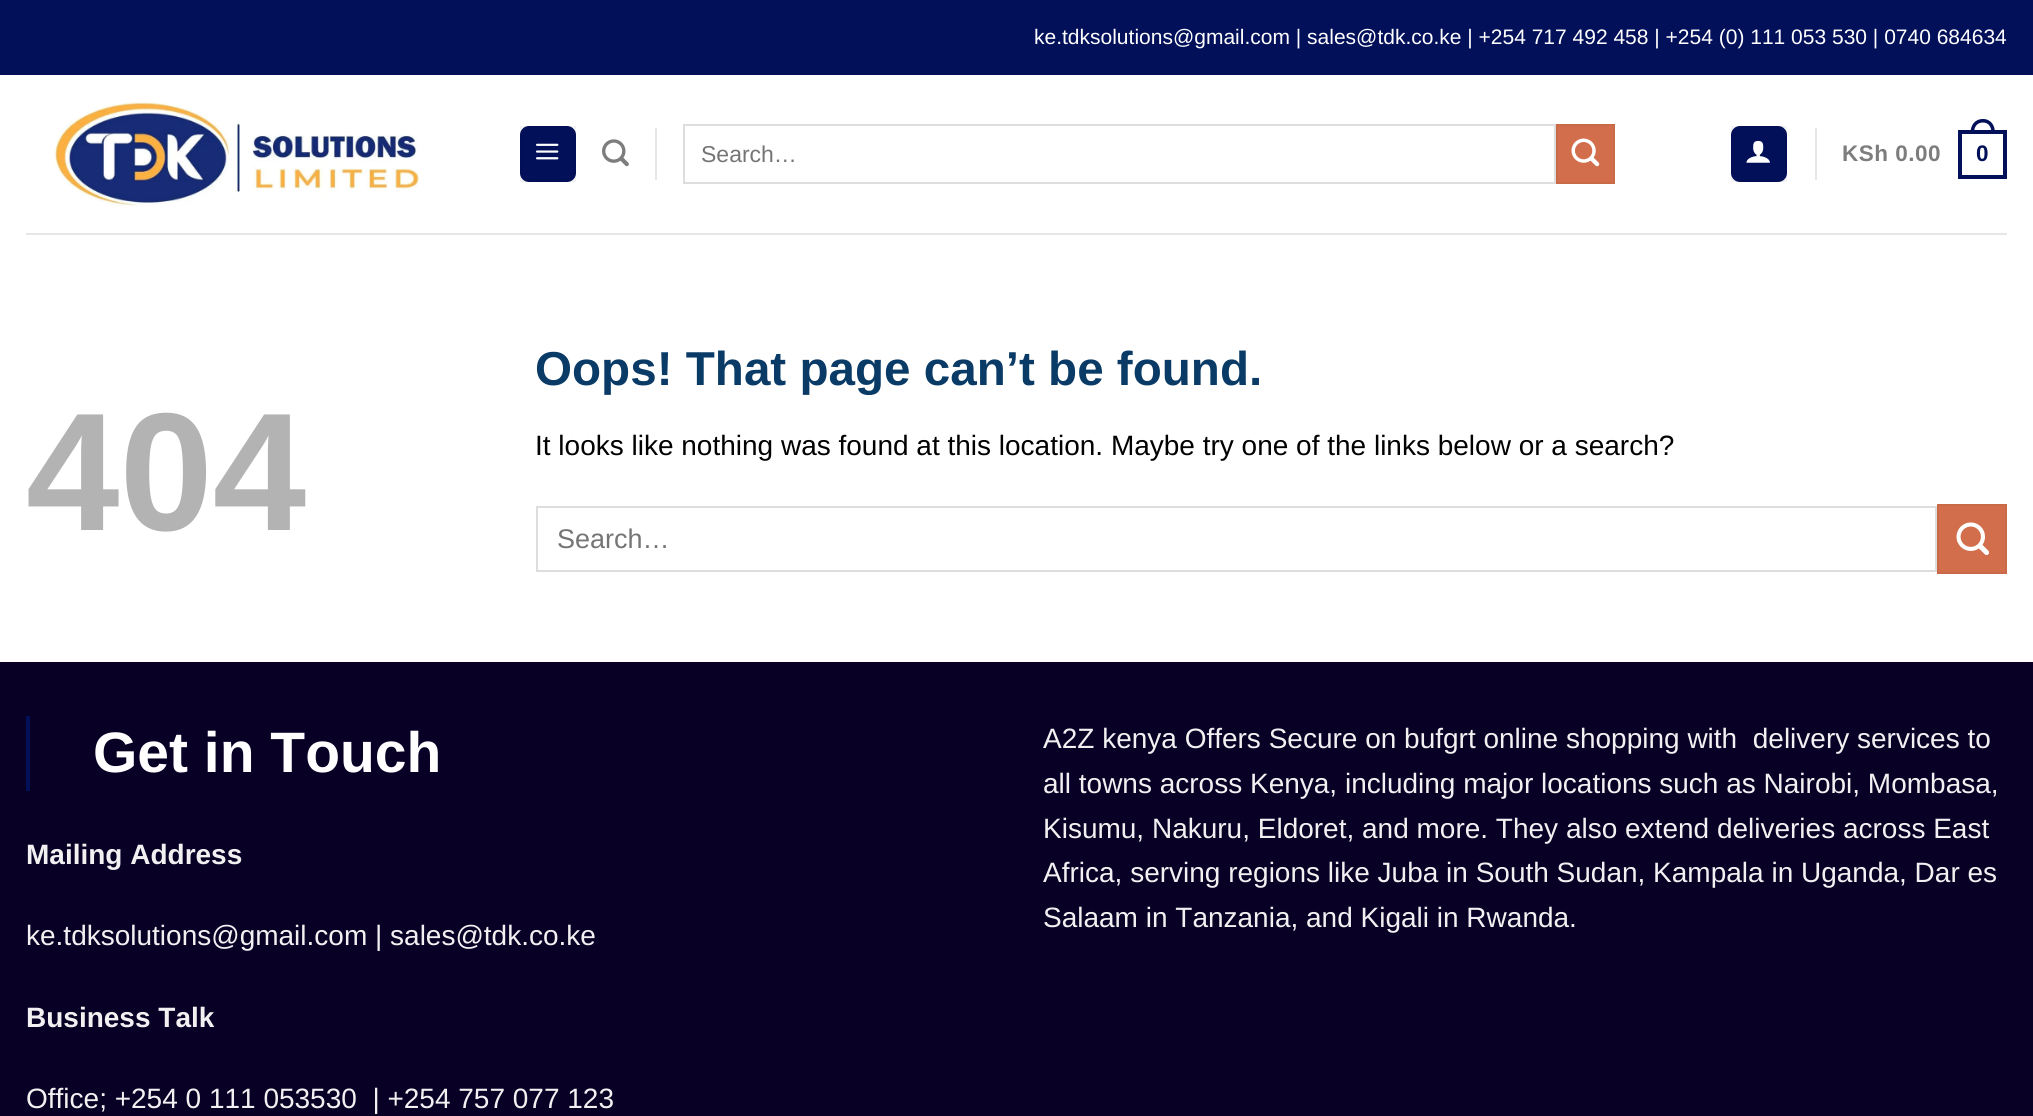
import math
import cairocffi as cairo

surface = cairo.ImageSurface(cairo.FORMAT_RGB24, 2033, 1116)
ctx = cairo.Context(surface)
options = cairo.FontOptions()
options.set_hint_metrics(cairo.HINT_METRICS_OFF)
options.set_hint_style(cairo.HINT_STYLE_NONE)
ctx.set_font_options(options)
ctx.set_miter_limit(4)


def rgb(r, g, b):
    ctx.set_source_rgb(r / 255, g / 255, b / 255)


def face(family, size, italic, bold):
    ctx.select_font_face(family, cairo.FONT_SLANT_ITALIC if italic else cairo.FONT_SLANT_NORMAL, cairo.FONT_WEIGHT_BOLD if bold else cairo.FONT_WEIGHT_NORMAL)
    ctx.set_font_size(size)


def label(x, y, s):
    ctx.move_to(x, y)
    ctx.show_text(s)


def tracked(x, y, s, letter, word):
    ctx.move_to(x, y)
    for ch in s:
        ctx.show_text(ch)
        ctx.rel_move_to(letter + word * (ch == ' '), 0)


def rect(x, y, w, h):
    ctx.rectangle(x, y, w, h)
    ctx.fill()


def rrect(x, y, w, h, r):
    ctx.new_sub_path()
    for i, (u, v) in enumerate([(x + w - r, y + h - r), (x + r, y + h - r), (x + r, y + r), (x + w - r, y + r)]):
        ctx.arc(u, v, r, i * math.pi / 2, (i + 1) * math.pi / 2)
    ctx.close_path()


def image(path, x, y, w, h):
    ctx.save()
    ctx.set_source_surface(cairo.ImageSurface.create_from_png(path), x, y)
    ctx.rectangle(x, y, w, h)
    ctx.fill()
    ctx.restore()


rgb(255, 255, 255)
ctx.paint()
rgb(2, 15, 89)
rect(0, 0, 2033, 75)
face('Liberation Sans', 21, 0, 0)
rgb(255, 255, 255)
label(1034, 44, 'ke.tdksolutions@gmail.com | sales@tdk.co.ke | +254 717 492 458 | +254 (0) 111 053 530 | 0740 684634')
image('image0.png', 54, 102, 366, 105)
rgb(2, 15, 89)
rrect(520, 126, 56, 56, 9)
ctx.fill()
ctx.rectangle(521, 127, 54, 54)
ctx.set_source_rgba(0, 0, 0, 0.05)
ctx.stroke()
image('image1.png', 536, 143, 23, 17)
image('image2.png', 602, 139, 27, 28)
rgb(230, 230, 230)
rect(655, 128, 2, 52)
ctx.rectangle(684, 125, 871, 58)
rgb(221, 221, 221)
ctx.stroke()
face('Liberation Sans', 23, 0, 0)
rgb(117, 117, 117)
label(701, 162, 'Search…')
rgb(210, 110, 75)
ctx.rectangle(1557, 125, 57, 58)
ctx.fill_preserve()
rgb(200, 105, 71)
ctx.stroke()
image('image3.png', 1571, 138, 29, 29)
rgb(2, 15, 89)
rrect(1731, 126, 56, 56, 9)
ctx.fill()
ctx.rectangle(1732, 127, 54, 54)
ctx.set_source_rgba(0, 0, 0, 0.05)
ctx.stroke()
image('image4.png', 1746, 140, 24, 23)
rgb(230, 230, 230)
rect(1815, 128, 2, 52)
face('Liberation Sans', 22.5, 0, 1)
rgb(125, 125, 125)
tracked(1842, 161, 'KSh 0.00', 0.5, 0)
ctx.rectangle(1960, 132, 45, 45)
rgb(2, 15, 89)
ctx.set_line_width(4)
ctx.stroke()
ctx.set_fill_rule(cairo.FILL_RULE_EVEN_ODD)
ctx.new_path()
ctx.move_to(1983, 119)
ctx.curve_to(1991, 119, 1995, 125.5, 1995, 133)
ctx.line_to(1970.5, 133)
ctx.curve_to(1970.5, 125.5, 1974.5, 119, 1983, 119)
ctx.close_path()
ctx.move_to(1983, 122.5)
ctx.curve_to(1989, 122.5, 1991.5, 127.5, 1991.5, 133)
ctx.line_to(1974, 133)
ctx.curve_to(1974, 127.5, 1976.5, 122.5, 1983, 122.5)
ctx.close_path()
ctx.fill()
tracked(1976, 161, '0', 0.5, 0)
rgb(230, 230, 230)
rect(26, 233, 1981, 2)
face('Liberation Sans', 168, 0, 1)
rgb(179, 179, 179)
label(26, 530, '404')
face('Liberation Sans', 47.6, 0, 1)
rgb(10, 59, 102)
label(535, 385, 'Oops! That page can’t be found.')
face('Liberation Sans', 28, 0, 0)
rgb(0, 0, 0)
label(535, 455, 'It looks like nothing was found at this location. Maybe try one of the links below or a search?')
ctx.rectangle(537, 507, 1399, 64)
rgb(221, 221, 221)
ctx.set_line_width(2)
ctx.stroke()
face('Liberation Sans', 27, 0, 0)
rgb(117, 117, 117)
label(557, 548, 'Search…')
rgb(210, 110, 75)
ctx.rectangle(1938, 505, 68, 68)
ctx.fill_preserve()
rgb(200, 105, 71)
ctx.stroke()
image('image5.png', 1956, 522, 34, 33)
rgb(9, 0, 38)
rect(0, 664, 2033, 452)
rgb(9, 0, 36)
rect(0, 662, 2033, 2)
rgb(2, 15, 89)
rect(26, 716, 4, 75)
face('Liberation Sans', 57, 0, 1)
rgb(255, 255, 255)
label(93, 772, 'Get in Touch')
face('Liberation Sans', 28, 0, 1)
rgb(241, 241, 241)
label(26, 864, 'Mailing Address')
face('Liberation Sans', 28, 0, 0)
label(26, 945, 'ke.tdksolutions@gmail.com | sales@tdk.co.ke')
face('Liberation Sans', 28, 0, 1)
label(26, 1027, 'Business Talk')
face('Liberation Sans', 28, 0, 0)
label(26, 1108, 'Office; +254 0 111 053530  | +254 757 077 123')
label(1043, 748, 'A2Z kenya Offers Secure on bufgrt online shopping with  delivery services to')
label(1043, 793, 'all towns across Kenya, including major locations such as Nairobi, Mombasa,')
label(1043, 838, 'Kisumu, Nakuru, Eldoret, and more. They also extend deliveries across East')
label(1043, 882, 'Africa, serving regions like Juba in South Sudan, Kampala in Uganda, Dar es')
label(1043, 927, 'Salaam in Tanzania, and Kigali in Rwanda.')
surface.write_to_png('render.png')
